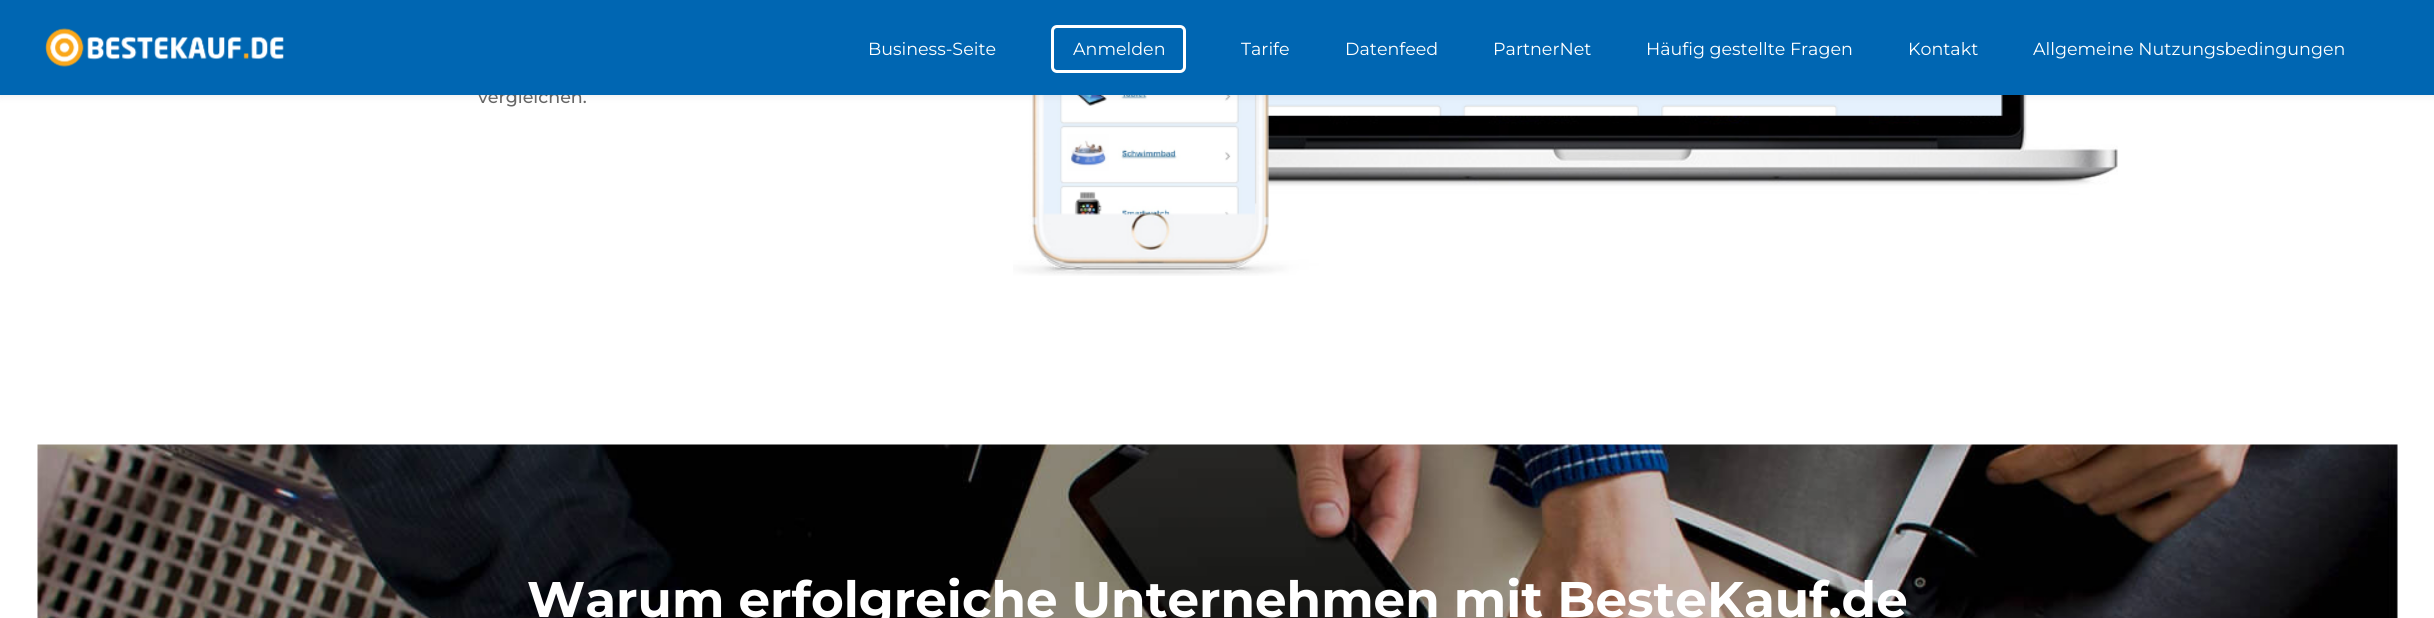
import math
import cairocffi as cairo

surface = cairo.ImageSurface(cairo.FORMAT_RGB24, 2434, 618)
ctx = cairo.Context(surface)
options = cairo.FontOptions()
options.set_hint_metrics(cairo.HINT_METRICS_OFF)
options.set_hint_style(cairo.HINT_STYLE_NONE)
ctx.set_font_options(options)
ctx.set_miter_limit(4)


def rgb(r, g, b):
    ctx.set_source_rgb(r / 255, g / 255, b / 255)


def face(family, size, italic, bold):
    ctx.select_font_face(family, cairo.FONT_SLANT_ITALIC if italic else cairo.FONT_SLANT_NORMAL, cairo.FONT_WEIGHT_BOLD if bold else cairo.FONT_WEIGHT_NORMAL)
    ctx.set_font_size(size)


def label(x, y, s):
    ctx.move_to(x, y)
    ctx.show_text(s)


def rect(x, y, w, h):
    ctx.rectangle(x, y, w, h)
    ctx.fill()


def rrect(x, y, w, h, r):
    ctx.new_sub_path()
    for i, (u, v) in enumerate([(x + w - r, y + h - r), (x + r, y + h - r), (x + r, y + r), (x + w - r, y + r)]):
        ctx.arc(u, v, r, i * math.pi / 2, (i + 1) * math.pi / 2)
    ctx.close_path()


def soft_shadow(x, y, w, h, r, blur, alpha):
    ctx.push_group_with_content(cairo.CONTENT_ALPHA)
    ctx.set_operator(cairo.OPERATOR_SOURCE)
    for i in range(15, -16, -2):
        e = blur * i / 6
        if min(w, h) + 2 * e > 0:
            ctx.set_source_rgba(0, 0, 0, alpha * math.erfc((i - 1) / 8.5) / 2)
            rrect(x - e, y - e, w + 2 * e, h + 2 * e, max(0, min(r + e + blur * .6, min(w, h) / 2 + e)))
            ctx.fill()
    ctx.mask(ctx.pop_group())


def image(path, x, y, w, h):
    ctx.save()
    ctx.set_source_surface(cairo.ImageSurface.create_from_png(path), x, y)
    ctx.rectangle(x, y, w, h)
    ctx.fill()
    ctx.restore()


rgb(255, 255, 255)
ctx.paint()
image('image1.png', 1013, 95, 1105, 181)
rgb(0, 0, 0)
soft_shadow(0, 0, 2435, 95, 0, 4.5, 0.1)
face('Montserrat Medium', 17.5, 0, 0)
rgb(102, 102, 102)
label(478, 103, 'vergleichen.')
rgb(0, 102, 178)
rect(0, 0, 2434, 95)
image('image0.png', 45, 28, 239, 39)
face('Montserrat', 17.5, 0, 0)
rgb(255, 255, 255)
label(868, 55, 'Business-Seite')
rrect(1052.5, 26.5, 132, 45, 4.5)
ctx.set_line_width(3)
ctx.stroke()
label(1073, 55, 'Anmelden')
label(1241, 55, 'Tarife')
label(1345, 55, 'Datenfeed')
label(1493, 55, 'PartnerNet')
label(1646, 55, 'Häufig gestellte Fragen')
label(1908, 55, 'Kontakt')
label(2033, 55, 'Allgemeine Nutzungsbedingungen')
image('image2.png', 37, 444, 2361, 174)
face('Montserrat', 50, 0, 1)
label(527, 617, 'Warum erfolgreiche Unternehmen mit BesteKauf.de')
surface.write_to_png('render.png')
